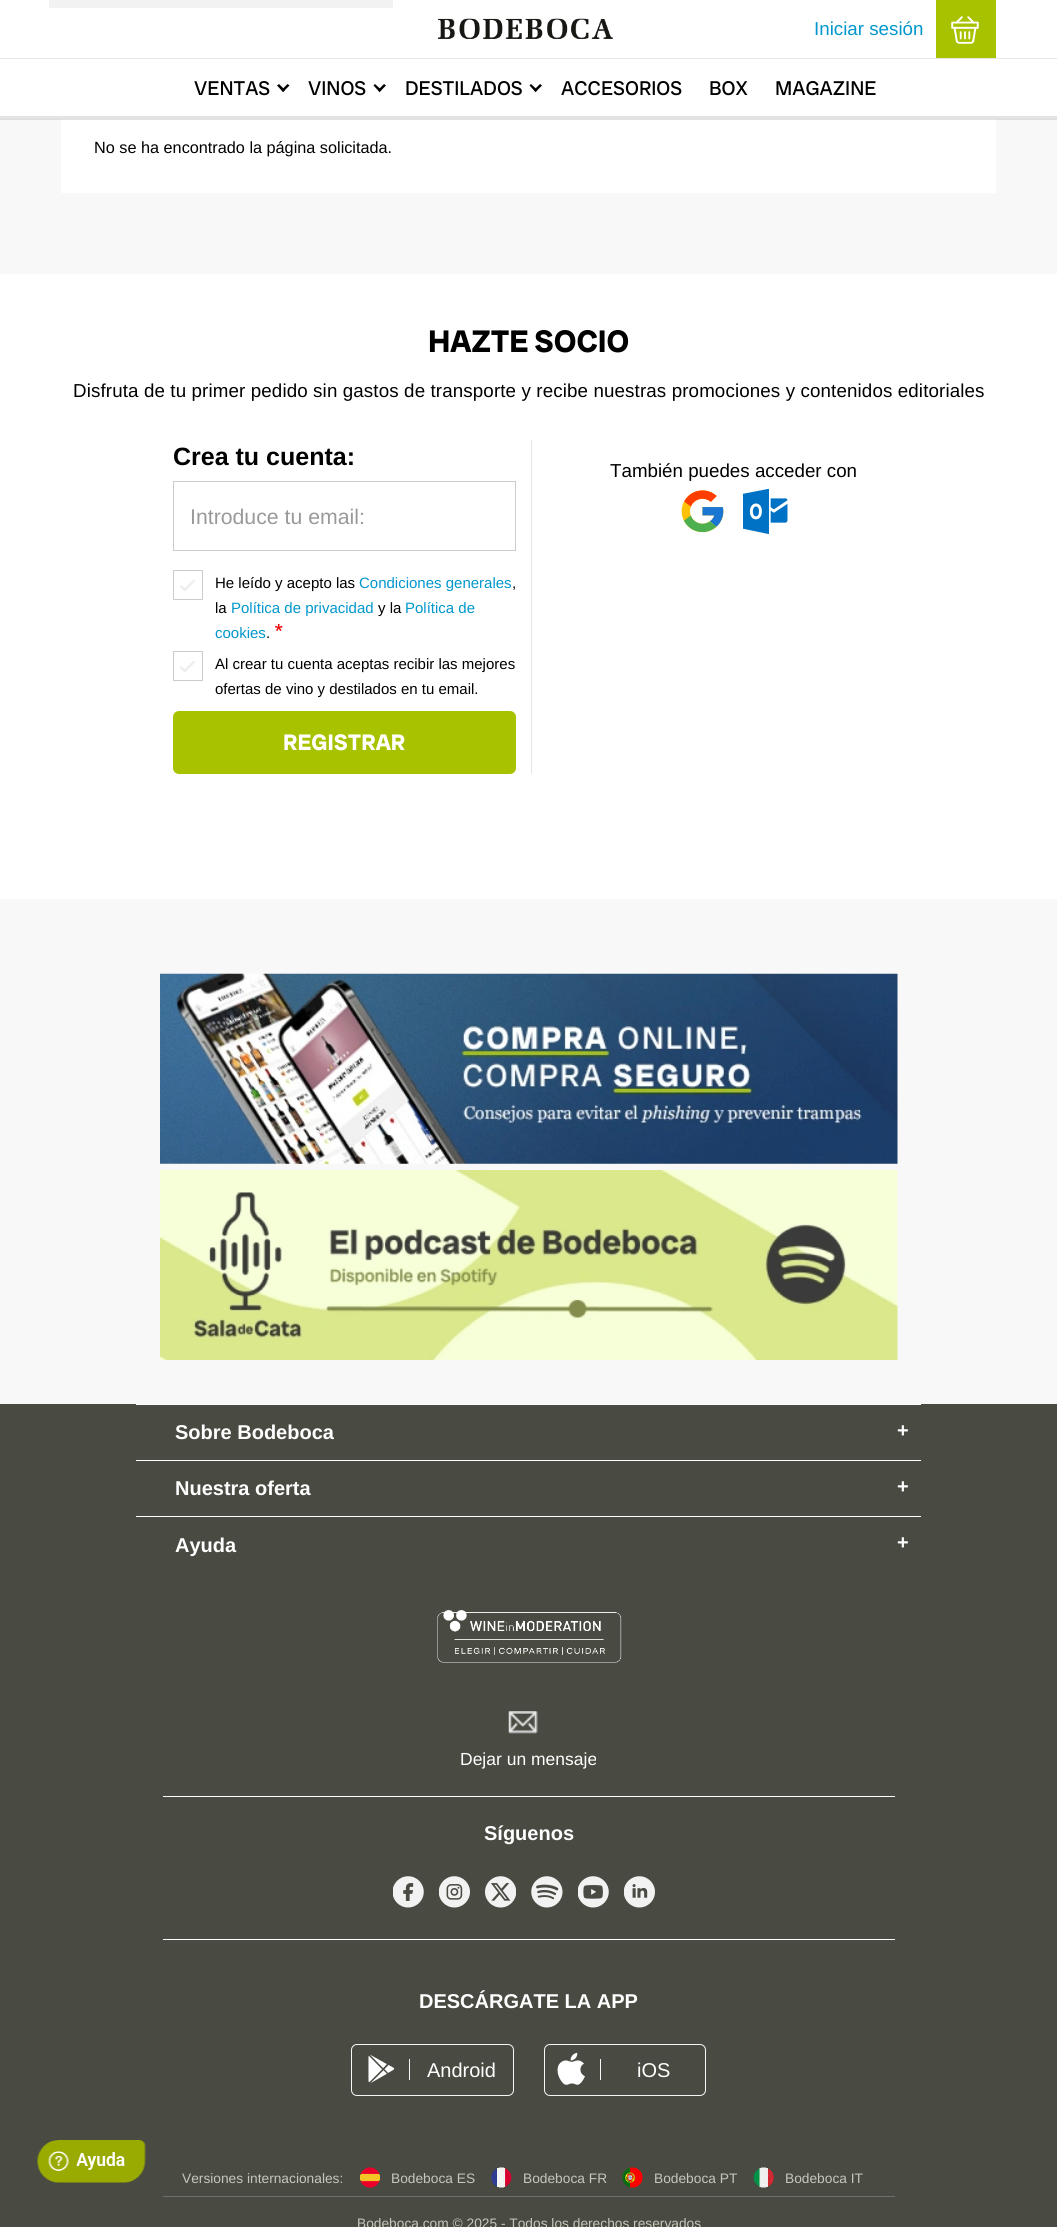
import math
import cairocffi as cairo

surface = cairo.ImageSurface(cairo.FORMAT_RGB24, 1057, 2227)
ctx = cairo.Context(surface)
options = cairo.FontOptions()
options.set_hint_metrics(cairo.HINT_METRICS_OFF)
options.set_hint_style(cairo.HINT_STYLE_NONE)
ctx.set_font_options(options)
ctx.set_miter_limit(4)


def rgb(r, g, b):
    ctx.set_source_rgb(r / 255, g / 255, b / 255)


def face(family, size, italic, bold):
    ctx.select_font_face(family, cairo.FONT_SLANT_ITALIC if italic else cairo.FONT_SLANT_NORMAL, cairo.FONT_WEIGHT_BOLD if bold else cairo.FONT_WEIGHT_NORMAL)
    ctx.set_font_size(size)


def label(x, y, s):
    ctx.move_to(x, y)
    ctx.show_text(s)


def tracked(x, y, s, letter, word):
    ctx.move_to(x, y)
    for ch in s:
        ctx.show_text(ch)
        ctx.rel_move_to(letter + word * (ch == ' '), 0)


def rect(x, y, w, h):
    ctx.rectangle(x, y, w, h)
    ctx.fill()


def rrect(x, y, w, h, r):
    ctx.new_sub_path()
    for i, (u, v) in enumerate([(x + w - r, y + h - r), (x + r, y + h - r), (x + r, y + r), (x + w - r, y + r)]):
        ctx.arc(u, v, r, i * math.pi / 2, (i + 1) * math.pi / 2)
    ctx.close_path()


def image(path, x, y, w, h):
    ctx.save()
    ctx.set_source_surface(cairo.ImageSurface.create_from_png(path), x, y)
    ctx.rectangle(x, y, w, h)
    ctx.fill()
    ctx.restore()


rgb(248, 248, 248)
ctx.paint()
rgb(255, 255, 255)
rect(0, 0, 1057, 116)
rgb(227, 227, 227)
rect(0, 116, 1057, 3)
rgb(242, 242, 242)
rect(49, 0, 344, 8)
image('image0.png', 438, 18, 175, 22)
face('Liberation Sans', 18.75, 0, 0)
rgb(1, 151, 205)
label(814, 35, 'Iniciar sesión')
rgb(169, 194, 0)
rect(936, 0, 60, 58)
image('image1.png', 951, 16, 28, 28)
face('Radio Canada Big', 20, 0, 0)
rgb(0, 0, 0)
label(194, 95, 'VENTAS')
ctx.new_path()
ctx.move_to(287.5, 84)
ctx.line_to(289.5, 85.5)
ctx.line_to(283, 92)
ctx.line_to(281.5, 90)
ctx.close_path()
ctx.fill()
ctx.new_path()
ctx.move_to(279, 84)
ctx.line_to(285, 90)
ctx.line_to(283, 92)
ctx.line_to(277, 85.5)
ctx.close_path()
ctx.fill()
label(308, 95, 'VINOS')
ctx.new_path()
ctx.move_to(384, 84)
ctx.line_to(386, 85.5)
ctx.line_to(379.5, 92)
ctx.line_to(378, 90)
ctx.close_path()
ctx.fill()
ctx.new_path()
ctx.move_to(375, 84)
ctx.line_to(381.5, 90)
ctx.line_to(379.5, 92)
ctx.line_to(373.5, 85.5)
ctx.close_path()
ctx.fill()
label(405, 95, 'DESTILADOS')
ctx.new_path()
ctx.move_to(540, 84)
ctx.line_to(542, 85.5)
ctx.line_to(535.5, 92)
ctx.line_to(534, 90)
ctx.close_path()
ctx.fill()
ctx.new_path()
ctx.move_to(531, 84)
ctx.line_to(537.5, 90)
ctx.line_to(535.5, 92)
ctx.line_to(529.5, 85.5)
ctx.close_path()
ctx.fill()
label(561, 95, 'ACCESORIOS')
label(709, 95, 'BOX')
label(775, 95, 'MAGAZINE')
rgb(230, 230, 230)
rect(0, 58, 1057, 1)
rgb(221, 221, 221)
rect(0, 119, 1057, 1)
rgb(255, 255, 255)
rect(61, 120, 935, 73)
rgb(227, 227, 227)
rect(61, 119, 935, 1)
face('Liberation Sans', 16.25, 0, 0)
rgb(0, 0, 0)
label(94, 153, 'No se ha encontrado la página solicitada.')
rgb(255, 255, 255)
rect(0, 274, 1057, 625)
face('Radio Canada Big', 31.25, 0, 1)
rgb(0, 0, 0)
label(428, 352, 'HAZTE SOCIO')
face('Liberation Sans', 18.75, 0, 0)
tracked(73, 397, 'Disfruta de tu primer pedido sin gastos de transporte y recibe nuestras promociones y contenidos editoriales', 0.12, 0)
rgb(230, 230, 230)
rect(531, 440, 1, 334)
face('Liberation Sans', 25, 0, 1)
rgb(0, 0, 0)
label(173, 465, 'Crea tu cuenta:')
ctx.rectangle(173.5, 481.5, 342, 69)
rgb(204, 204, 204)
ctx.set_line_width(1)
ctx.stroke()
face('Liberation Sans', 21.25, 0, 0)
rgb(153, 153, 153)
label(190, 524, 'Introduce tu email:')
ctx.rectangle(173.5, 570.5, 29, 29)
rgb(204, 204, 204)
ctx.stroke()
face('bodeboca', 15, 0, 0)
rgb(238, 238, 238)
label(180, 593, '!')
face('Liberation Sans', 15, 0, 0)
rgb(0, 0, 0)
label(215, 588, 'He leído y acepto las')
rgb(1, 151, 205)
label(359, 588, 'Condiciones generales')
rgb(0, 0, 0)
label(512, 588, ',')
label(215, 613, 'la')
rgb(1, 151, 205)
label(231, 613, 'Política de privacidad')
rgb(0, 0, 0)
label(378, 613, 'y la')
rgb(1, 151, 205)
label(405, 613, 'Política de')
label(215, 638, 'cookies')
rgb(0, 0, 0)
label(266, 638, '.')
image('image2.png', 275, 624, 8, 7)
ctx.rectangle(173.5, 651.5, 29, 29)
rgb(204, 204, 204)
ctx.stroke()
face('bodeboca', 15, 0, 0)
rgb(238, 238, 238)
label(180, 674, '!')
face('Liberation Sans', 15, 0, 0)
rgb(0, 0, 0)
label(215, 669, 'Al crear tu cuenta aceptas recibir las mejores')
label(215, 694, 'ofertas de vino y destilados en tu email.')
rgb(169, 194, 0)
rrect(173, 711, 343, 63, 6)
ctx.fill()
face('Radio Canada Big', 22.5, 0, 1)
rgb(255, 255, 255)
label(283, 750, 'REGISTRAR')
face('Liberation Sans', 18.75, 0, 0)
rgb(0, 0, 0)
label(610, 477, 'También puedes acceder con')
image('image3.png', 681, 490, 43, 43)
image('image4.png', 743, 489, 45, 45)
image('image5.png', 160, 973, 738, 191)
image('image6.png', 160, 1170, 738, 190)
rgb(73, 75, 66)
rect(0, 1404, 1057, 823)
rgb(255, 255, 255)
rect(136, 1404, 785, 1)
face('Liberation Sans', 20, 0, 1)
label(175, 1439, 'Sobre Bodeboca')
label(897, 1437, '+')
rect(136, 1460, 785, 1)
label(175, 1495, 'Nuestra oferta')
label(897, 1493, '+')
rect(136, 1516, 785, 1)
label(175, 1552, 'Ayuda')
label(897, 1549, '+')
image('image7.png', 437, 1610, 185, 53)
rect(163, 1796, 732, 1)
image('image8.png', 508, 1711, 30, 23)
face('Liberation Sans', 17.5, 0, 0)
label(460, 1765, 'Dejar un mensaje')
rect(163, 1939, 732, 1)
face('Liberation Sans', 20, 0, 1)
label(484, 1840, 'Síguenos')
image('image9.png', 393, 1876, 31, 32)
image('image10.png', 439, 1876, 31, 32)
image('image11.png', 485, 1876, 31, 32)
image('image12.png', 531, 1876, 32, 32)
image('image13.png', 578, 1876, 31, 32)
image('image14.png', 624, 1876, 31, 32)
label(419, 2008, 'DESCÁRGATE LA APP')
rrect(351.5, 2044.5, 162, 51, 5.5)
rgb(247, 247, 247)
ctx.stroke()
rect(409, 2059, 1, 21)
image('image15.png', 368, 2054, 27, 29)
face('Liberation Sans', 20, 0, 0)
rgb(255, 255, 255)
label(427, 2077, 'Android')
rrect(544.5, 2044.5, 161, 51, 5.5)
rgb(247, 247, 247)
ctx.stroke()
rect(600, 2059, 1, 21)
image('image16.png', 557, 2052, 28, 33)
rgb(255, 255, 255)
label(637, 2077, 'iOS')
face('Liberation Sans', 13.75, 0, 0)
rgb(199, 198, 188)
label(182, 2183, 'Versiones internacionales:')
image('image17.png', 360, 2167, 20, 21)
label(391, 2183, 'Bodeboca ES')
image('image18.png', 491, 2167, 21, 21)
label(523, 2183, 'Bodeboca FR')
image('image19.png', 622, 2167, 21, 21)
label(654, 2183, 'Bodeboca PT')
image('image20.png', 753, 2167, 21, 21)
label(785, 2183, 'Bodeboca IT')
rgb(110, 110, 104)
rect(163, 2196, 732, 1)
rgb(199, 198, 188)
label(357, 2228, 'Bodeboca.com © 2025 - Todos los derechos reservados')
image('image21.png', 37, 2140, 109, 43)
surface.write_to_png('render.png')
